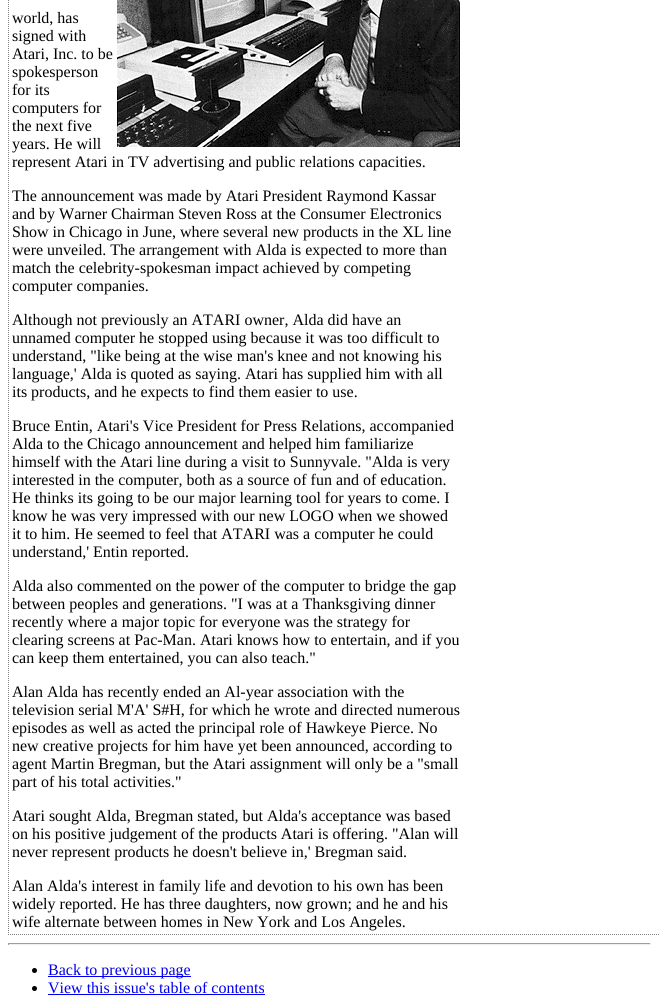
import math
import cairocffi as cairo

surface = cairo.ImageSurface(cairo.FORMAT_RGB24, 659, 1008)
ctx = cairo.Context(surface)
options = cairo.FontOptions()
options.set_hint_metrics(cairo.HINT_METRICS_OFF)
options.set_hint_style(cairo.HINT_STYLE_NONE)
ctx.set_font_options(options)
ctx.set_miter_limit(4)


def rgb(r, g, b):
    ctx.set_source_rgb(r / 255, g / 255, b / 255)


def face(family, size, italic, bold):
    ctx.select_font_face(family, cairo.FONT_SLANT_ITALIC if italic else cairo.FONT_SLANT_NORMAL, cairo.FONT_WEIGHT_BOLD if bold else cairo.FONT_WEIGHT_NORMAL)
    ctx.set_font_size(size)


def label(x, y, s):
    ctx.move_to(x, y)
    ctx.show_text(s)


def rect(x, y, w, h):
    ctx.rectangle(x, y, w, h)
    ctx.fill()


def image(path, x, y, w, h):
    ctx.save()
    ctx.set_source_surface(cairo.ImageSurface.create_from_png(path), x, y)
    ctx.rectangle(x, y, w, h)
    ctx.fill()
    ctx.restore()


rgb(255, 255, 255)
ctx.paint()
ctx.new_path()
ctx.move_to(8, 934.5)
ctx.line_to(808, 934.5)
rgb(128, 128, 128)
ctx.set_line_width(1)
ctx.set_dash([1, 1])
ctx.stroke()
ctx.new_path()
ctx.move_to(8.5, -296)
ctx.line_to(8.5, 935)
ctx.stroke()
face('Liberation Serif', 16, 0, 0)
rgb(0, 0, 0)
label(12, 23, 'world, has')
image('image0.png', 117, 0, 343, 147)
label(12, 41, 'signed with')
label(12, 59, 'Atari, Inc. to be')
label(12, 77, 'spokesperson')
label(12, 95, 'for its')
label(12, 113, 'computers for')
label(12, 131, 'the next five')
label(12, 149, 'years. He will')
label(12, 167, 'represent Atari in TV advertising and public relations capacities.')
label(12, 201, 'The announcement was made by Atari President Raymond Kassar')
label(12, 219, 'and by Warner Chairman Steven Ross at the Consumer Electronics')
label(12, 237, 'Show in Chicago in June, where several new products in the XL line')
label(12, 255, 'were unveiled. The arrangement with Alda is expected to more than')
label(12, 273, 'match the celebrity-spokesman impact achieved by competing')
label(12, 291, 'computer companies.')
label(12, 325, 'Although not previously an ATARI owner, Alda did have an')
label(12, 343, 'unnamed computer he stopped using because it was too difficult to')
label(12, 361, 'understand, "like being at the wise man\'s knee and not knowing his')
label(12, 379, 'language,\' Alda is quoted as saying. Atari has supplied him with all')
label(12, 397, 'its products, and he expects to find them easier to use.')
label(12, 431, 'Bruce Entin, Atari\'s Vice President for Press Relations, accompanied')
label(12, 449, 'Alda to the Chicago announcement and helped him familiarize')
label(12, 467, 'himself with the Atari line during a visit to Sunnyvale. "Alda is very')
label(12, 485, 'interested in the computer, both as a source of fun and of education.')
label(12, 503, 'He thinks its going to be our major learning tool for years to come. I')
label(12, 521, 'know he was very impressed with our new LOGO when we showed')
label(12, 539, 'it to him. He seemed to feel that ATARI was a computer he could')
label(12, 557, 'understand,\' Entin reported.')
label(12, 591, 'Alda also commented on the power of the computer to bridge the gap')
label(12, 609, 'between peoples and generations. "I was at a Thanksgiving dinner')
label(12, 627, 'recently where a major topic for everyone was the strategy for')
label(12, 645, 'clearing screens at Pac-Man. Atari knows how to entertain, and if you')
label(12, 663, 'can keep them entertained, you can also teach."')
label(12, 697, 'Alan Alda has recently ended an Al-year association with the')
label(12, 715, 'television serial M\'A\' S#H, for which he wrote and directed numerous')
label(12, 733, 'episodes as well as acted the principal role of Hawkeye Pierce. No')
label(12, 751, 'new creative projects for him have yet been announced, according to')
label(12, 769, 'agent Martin Bregman, but the Atari assignment will only be a "small')
label(12, 787, 'part of his total activities."')
label(12, 821, 'Atari sought Alda, Bregman stated, but Alda\'s acceptance was based')
label(12, 839, 'on his positive judgement of the products Atari is offering. "Alan will')
label(12, 857, 'never represent products he doesn\'t believe in,\' Bregman said.')
label(12, 891, 'Alan Alda\'s interest in family life and devotion to his own has been')
label(12, 909, 'widely reported. He has three daughters, now grown; and he and his')
label(12, 927, 'wife alternate between homes in New York and Los Angeles.')
rgb(159, 159, 159)
rect(8, 943, 643, 1)
rgb(238, 238, 238)
rect(650, 943, 1, 2)
rect(8, 944, 643, 1)
rgb(159, 159, 159)
rect(8, 943, 1, 2)
rgb(0, 0, 0)
ctx.new_path()
ctx.arc(34.5, 970.5, 2.5, 0, 2 * math.pi)
ctx.fill()
rgb(0, 0, 238)
rect(48, 976, 143, 1)
label(48, 975, 'Back to previous page')
rgb(0, 0, 0)
ctx.new_path()
ctx.arc(34.5, 988.5, 2.5, 0, 2 * math.pi)
ctx.fill()
rgb(0, 0, 238)
label(48, 993, 'View this issue\'s table of contents')
rect(48, 994, 217, 1)
surface.write_to_png('render.png')
